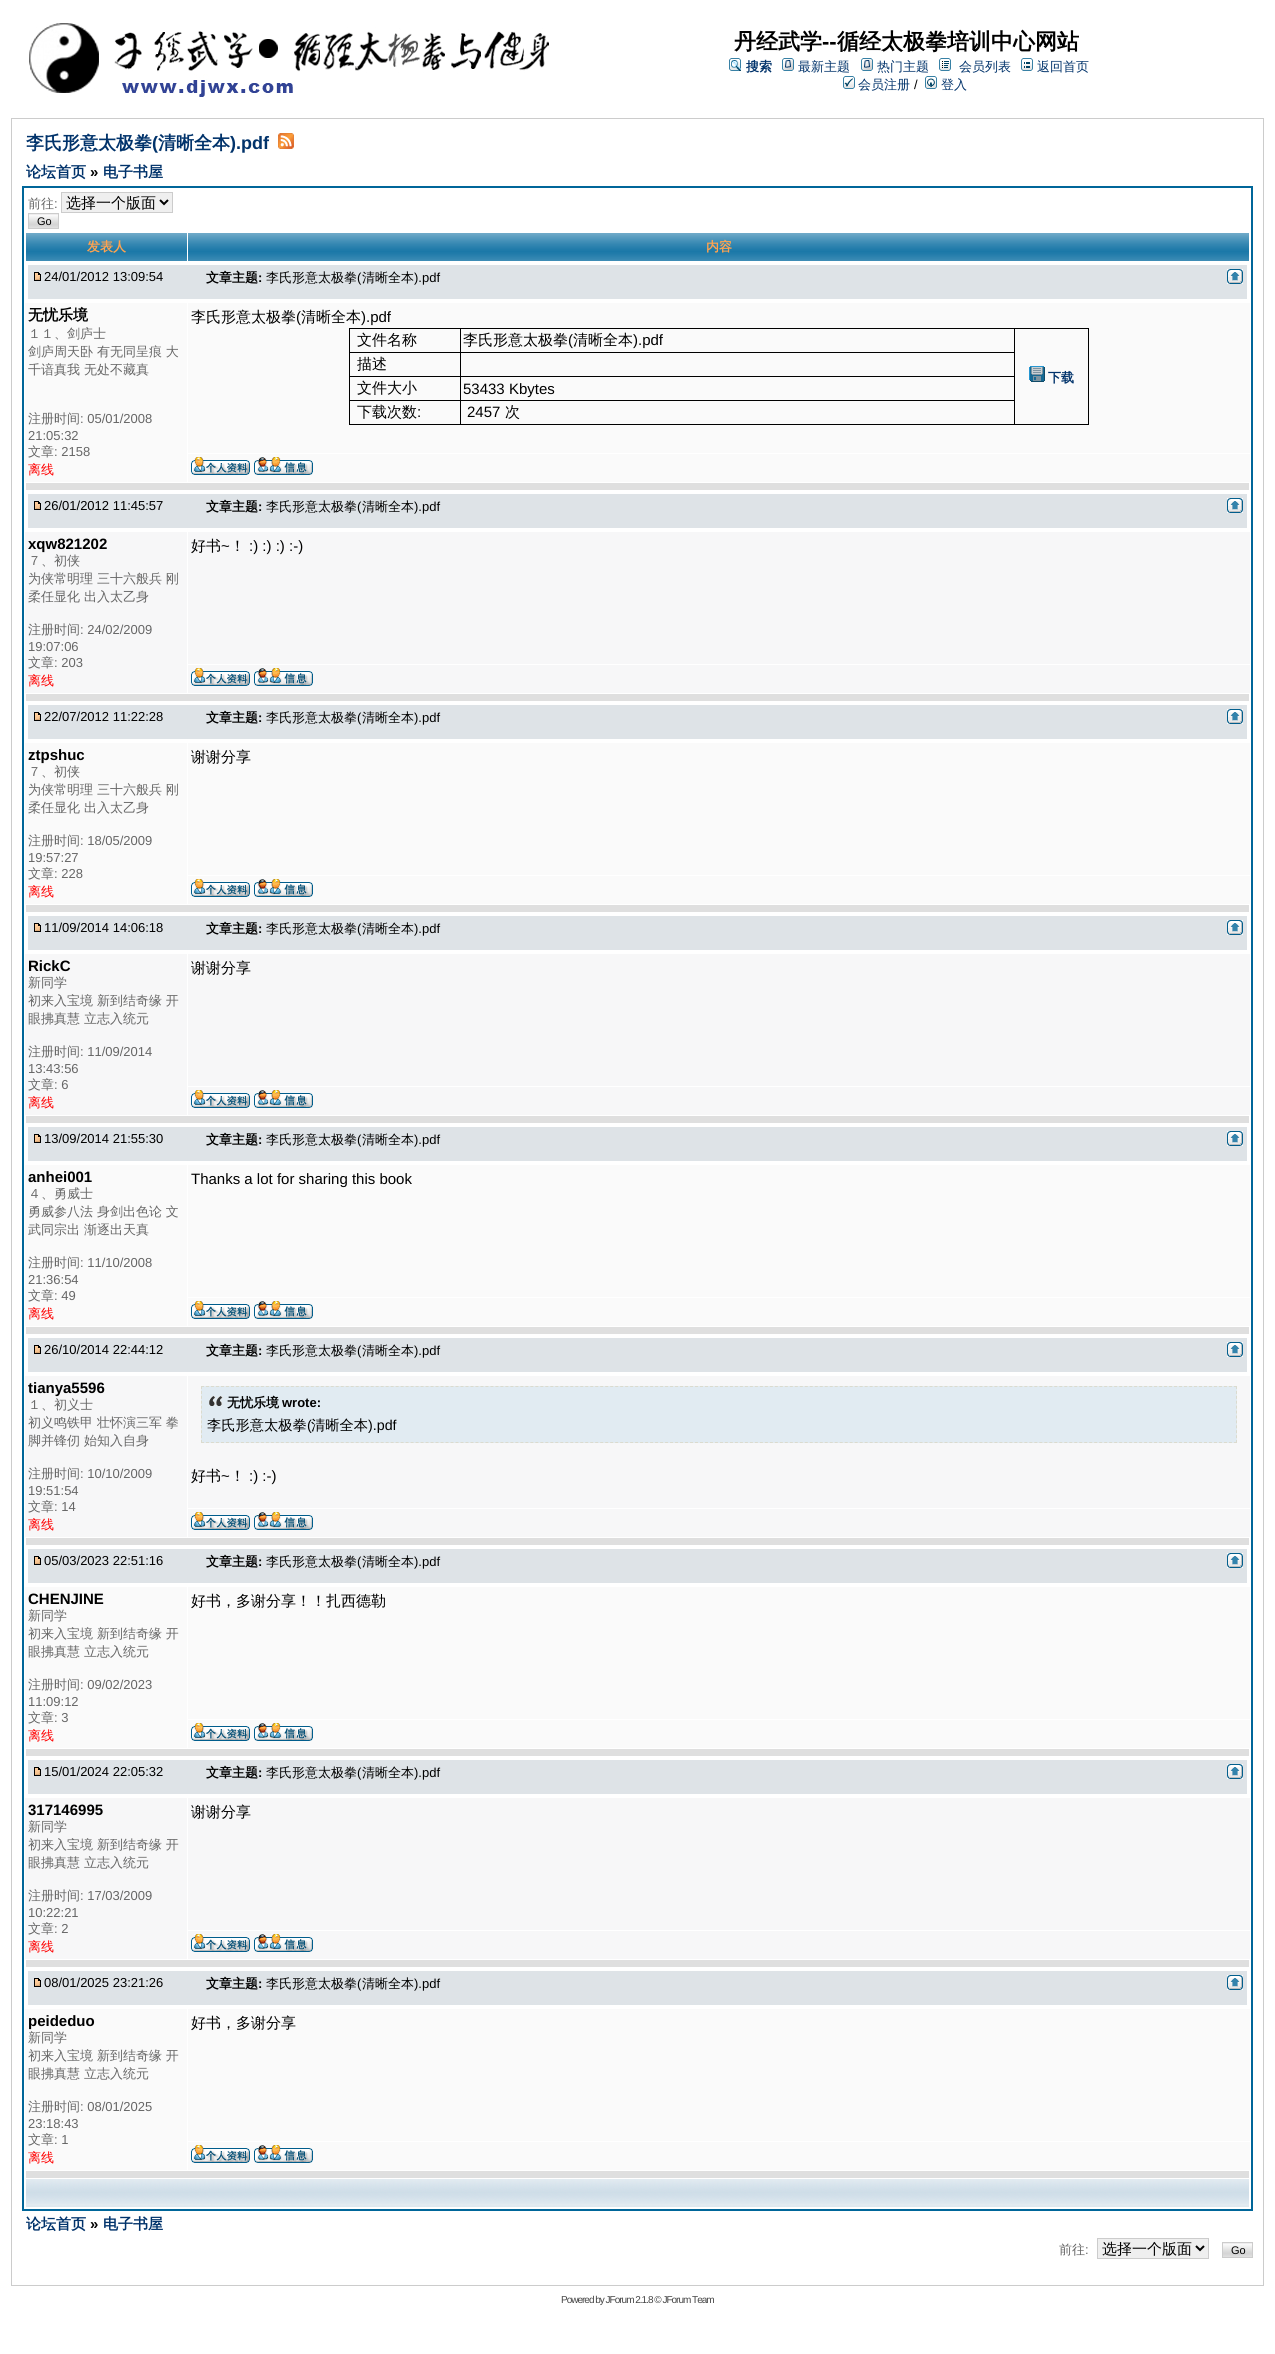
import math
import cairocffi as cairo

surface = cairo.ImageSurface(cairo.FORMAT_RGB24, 1275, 2354)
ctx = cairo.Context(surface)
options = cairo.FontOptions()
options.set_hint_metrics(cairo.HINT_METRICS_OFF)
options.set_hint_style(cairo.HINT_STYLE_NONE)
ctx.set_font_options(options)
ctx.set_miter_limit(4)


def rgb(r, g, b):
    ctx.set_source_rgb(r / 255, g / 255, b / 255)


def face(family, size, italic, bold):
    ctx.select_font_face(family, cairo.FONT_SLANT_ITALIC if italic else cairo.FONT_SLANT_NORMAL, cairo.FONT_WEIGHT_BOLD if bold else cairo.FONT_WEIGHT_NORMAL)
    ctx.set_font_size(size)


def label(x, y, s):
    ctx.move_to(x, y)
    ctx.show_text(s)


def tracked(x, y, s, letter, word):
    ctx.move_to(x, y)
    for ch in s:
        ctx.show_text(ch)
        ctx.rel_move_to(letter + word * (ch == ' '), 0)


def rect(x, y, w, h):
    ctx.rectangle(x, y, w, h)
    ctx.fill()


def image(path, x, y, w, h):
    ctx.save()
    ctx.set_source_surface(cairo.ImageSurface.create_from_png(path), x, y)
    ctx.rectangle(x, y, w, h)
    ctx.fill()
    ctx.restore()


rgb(255, 255, 255)
ctx.paint()
image('image0.png', 29, 23, 520, 74)
face('WenQuanYi Zen Hei', 22, 0, 1)
rgb(0, 0, 0)
label(734, 49, '丹经武学')
face('Liberation Sans', 22, 0, 1)
label(822, 49, '--')
face('WenQuanYi Zen Hei', 22, 0, 1)
label(837, 49, '循经太极拳培训中心网站')
image('image1.png', 729, 58, 12, 13)
face('WenQuanYi Zen Hei', 13, 0, 1)
rgb(1, 51, 107)
label(746, 71, '搜索')
image('image2.png', 782, 58, 12, 13)
face('WenQuanYi Zen Hei Medium', 13, 0, 0)
label(798, 71, '最新主题')
image('image2.png', 861, 58, 12, 13)
label(877, 71, '热门主题')
image('image3.png', 939, 58, 12, 13)
label(959, 71, '会员列表')
image('image4.png', 1021, 58, 12, 13)
label(1037, 71, '返回首页')
image('image5.png', 843, 76, 12, 13)
label(858, 89, '会员注册')
face('Liberation Sans', 13, 0, 0)
rgb(0, 0, 0)
label(914, 89, '/')
image('image6.png', 925, 76, 12, 13)
face('WenQuanYi Zen Hei Medium', 13, 0, 0)
rgb(1, 51, 107)
label(941, 89, '登入')
ctx.rectangle(11.5, 118.5, 1252, 2167)
rgb(204, 204, 204)
ctx.set_line_width(1)
ctx.stroke()
face('WenQuanYi Zen Hei', 18, 0, 1)
rgb(1, 51, 107)
label(26, 149, '李氏形意太极拳')
face('Liberation Sans', 18, 0, 1)
label(152, 149, '(')
face('WenQuanYi Zen Hei', 18, 0, 1)
label(158, 149, '清晰全本')
face('Liberation Sans', 18, 0, 1)
label(230, 149, ').pdf')
image('image7.png', 278, 133, 16, 16)
face('WenQuanYi Zen Hei', 15, 0, 1)
label(26, 177, '论坛首页')
face('Liberation Sans', 15, 0, 1)
rgb(0, 0, 0)
label(90, 177, '»')
face('WenQuanYi Zen Hei', 15, 0, 1)
rgb(1, 51, 107)
label(103, 177, '电子书屋')
ctx.rectangle(23, 187, 1229, 2023)
rgb(0, 102, 153)
ctx.set_line_width(2)
ctx.stroke()
face('WenQuanYi Zen Hei Medium', 13, 0, 0)
rgb(102, 102, 102)
label(28, 208, '前往')
face('Liberation Sans', 13, 0, 0)
label(54, 208, ':')
rgb(239, 239, 239)
ctx.rectangle(61.5, 192.5, 111, 20)
ctx.fill_preserve()
rgb(204, 204, 204)
ctx.set_line_width(1)
ctx.stroke()
ctx.new_path()
ctx.move_to(160, 200)
ctx.line_to(164, 204)
ctx.line_to(168, 200)
rgb(0, 0, 0)
ctx.set_line_width(2)
ctx.stroke()
face('WenQuanYi Zen Hei Medium', 15, 0, 0)
label(66, 208, '选择一个版面')
image('image8.png', 29, 214, 29, 14)
ctx.rectangle(28.5, 213.5, 30, 15)
rgb(204, 204, 204)
ctx.set_line_width(1)
ctx.stroke()
face('Liberation Sans', 11, 0, 0)
rgb(0, 0, 0)
label(37, 225, 'Go')
image('image9.png', 26, 233, 161, 28)
face('WenQuanYi Zen Hei', 13, 0, 1)
rgb(255, 163, 79)
label(87, 251, '发表人')
image('image10.png', 188, 233, 1061, 28)
label(706, 251, '内容')
rgb(222, 227, 231)
rect(28, 265, 1219, 34)
image('image11.png', 34, 272, 7, 9)
face('Liberation Sans', 13, 0, 0)
rgb(0, 0, 0)
label(44, 281, '24/01/2012 13:09:54')
face('WenQuanYi Zen Hei', 13, 0, 1)
label(206, 282, '文章主题')
face('Liberation Sans', 13, 0, 1)
label(258, 282, ':')
face('WenQuanYi Zen Hei Medium', 13, 0, 0)
label(266, 282, '李氏形意太极拳')
face('Liberation Sans', 13, 0, 0)
label(357, 282, '(')
face('WenQuanYi Zen Hei Medium', 13, 0, 0)
label(362, 282, '清晰全本')
face('Liberation Sans', 13, 0, 0)
label(414, 282, ').pdf')
image('image12.png', 1227, 269, 16, 15)
rgb(250, 250, 250)
rect(25, 303, 162, 179)
face('WenQuanYi Zen Hei', 15, 0, 1)
rgb(0, 0, 0)
label(28, 320, '无忧乐境')
face('WenQuanYi Zen Hei Medium', 13, 0, 0)
rgb(102, 102, 102)
label(28, 338, '１１、剑庐士')
label(28, 356, '剑庐周天卧 有无同呈痕 大')
label(28, 374, '千谙真我 无处不藏真')
label(28, 423, '注册时间')
face('Liberation Sans', 13, 0, 0)
label(80, 423, ': 05/01/2008')
label(28, 440, '21:05:32')
face('WenQuanYi Zen Hei Medium', 13, 0, 0)
label(28, 456, '文章')
face('Liberation Sans', 13, 0, 0)
label(54, 456, ': 2158')
face('WenQuanYi Zen Hei Medium', 13, 0, 0)
rgb(255, 0, 0)
label(28, 474, '离线')
rgb(250, 250, 250)
rect(188, 303, 1062, 150)
face('WenQuanYi Zen Hei Medium', 15, 0, 0)
rgb(0, 0, 0)
label(191, 322, '李氏形意太极拳')
face('Liberation Sans', 15, 0, 0)
label(296, 322, '(')
face('WenQuanYi Zen Hei Medium', 15, 0, 0)
label(301, 322, '清晰全本')
face('Liberation Sans', 15, 0, 0)
label(361, 322, ').pdf')
rect(349, 328, 740, 1)
rect(1088, 328, 1, 97)
rect(349, 424, 740, 1)
rect(349, 328, 1, 97)
face('WenQuanYi Zen Hei Medium', 15, 0, 0)
label(357, 345, '文件名称')
rect(460, 352, 555, 1)
rect(460, 376, 555, 1)
rect(460, 400, 555, 1)
rect(460, 400, 1, 25)
rect(349, 400, 112, 1)
rect(460, 376, 1, 25)
rect(349, 376, 112, 1)
rect(460, 352, 1, 25)
rect(349, 352, 112, 1)
rect(460, 328, 1, 25)
label(463, 345, '李氏形意太极拳')
face('Liberation Sans', 15, 0, 0)
label(568, 345, '(')
face('WenQuanYi Zen Hei Medium', 15, 0, 0)
label(573, 345, '清晰全本')
face('Liberation Sans', 15, 0, 0)
label(633, 345, ').pdf')
rect(1014, 328, 1, 97)
image('image13.png', 1029, 366, 16, 16)
face('WenQuanYi Zen Hei', 13, 0, 1)
rgb(1, 51, 107)
label(1048, 382, '下载')
face('WenQuanYi Zen Hei Medium', 15, 0, 0)
rgb(0, 0, 0)
label(357, 369, '描述')
label(357, 393, '文件大小')
face('Liberation Sans', 15, 0, 0)
label(463, 394, '53433 Kbytes')
face('WenQuanYi Zen Hei Medium', 15, 0, 0)
label(357, 417, '下载次数')
face('Liberation Sans', 15, 0, 0)
label(417, 417, ':')
label(467, 417, '2457')
face('WenQuanYi Zen Hei Medium', 15, 0, 0)
label(505, 417, '次')
rgb(250, 250, 250)
rect(188, 454, 1062, 28)
image('image14.png', 191, 457, 59, 18)
image('image15.png', 254, 457, 59, 18)
rgb(223, 223, 223)
rect(26, 483, 1223, 7)
rgb(222, 227, 231)
rect(28, 494, 1219, 34)
image('image11.png', 34, 501, 7, 9)
face('Liberation Sans', 13, 0, 0)
rgb(0, 0, 0)
label(44, 510, '26/01/2012 11:45:57')
face('WenQuanYi Zen Hei', 13, 0, 1)
label(206, 511, '文章主题')
face('Liberation Sans', 13, 0, 1)
label(258, 511, ':')
face('WenQuanYi Zen Hei Medium', 13, 0, 0)
label(266, 511, '李氏形意太极拳')
face('Liberation Sans', 13, 0, 0)
label(357, 511, '(')
face('WenQuanYi Zen Hei Medium', 13, 0, 0)
label(362, 511, '清晰全本')
face('Liberation Sans', 13, 0, 0)
label(414, 511, ').pdf')
image('image12.png', 1227, 498, 16, 15)
rgb(247, 247, 248)
rect(25, 532, 162, 161)
face('Liberation Sans', 15, 0, 1)
rgb(0, 0, 0)
label(28, 549, 'xqw821202')
face('WenQuanYi Zen Hei Medium', 13, 0, 0)
rgb(102, 102, 102)
label(28, 565, '７、初侠')
label(28, 583, '为侠常明理 三十六般兵 刚')
label(28, 601, '柔任显化 出入太乙身')
label(28, 634, '注册时间')
face('Liberation Sans', 13, 0, 0)
label(80, 634, ': 24/02/2009')
label(28, 651, '19:07:06')
face('WenQuanYi Zen Hei Medium', 13, 0, 0)
label(28, 667, '文章')
face('Liberation Sans', 13, 0, 0)
label(54, 667, ': 203')
face('WenQuanYi Zen Hei Medium', 13, 0, 0)
rgb(255, 0, 0)
label(28, 685, '离线')
rgb(247, 247, 248)
rect(188, 532, 1062, 132)
face('WenQuanYi Zen Hei Medium', 15, 0, 0)
rgb(0, 0, 0)
label(191, 551, '好书')
face('Liberation Sans', 15, 0, 0)
label(221, 551, '~')
face('WenQuanYi Zen Hei Medium', 15, 0, 0)
label(230, 551, '！')
face('Liberation Sans', 15, 0, 0)
label(249, 551, ':) :) :) :-)')
rgb(247, 247, 248)
rect(188, 665, 1062, 28)
image('image16.png', 191, 668, 59, 18)
image('image17.png', 254, 668, 59, 18)
rgb(223, 223, 223)
rect(26, 694, 1223, 7)
rgb(222, 227, 231)
rect(28, 705, 1219, 34)
image('image11.png', 34, 712, 7, 9)
face('Liberation Sans', 13, 0, 0)
rgb(0, 0, 0)
label(44, 721, '22/07/2012 11:22:28')
face('WenQuanYi Zen Hei', 13, 0, 1)
label(206, 722, '文章主题')
face('Liberation Sans', 13, 0, 1)
label(258, 722, ':')
face('WenQuanYi Zen Hei Medium', 13, 0, 0)
label(266, 722, '李氏形意太极拳')
face('Liberation Sans', 13, 0, 0)
label(357, 722, '(')
face('WenQuanYi Zen Hei Medium', 13, 0, 0)
label(362, 722, '清晰全本')
face('Liberation Sans', 13, 0, 0)
label(414, 722, ').pdf')
image('image12.png', 1227, 709, 16, 15)
rgb(250, 250, 250)
rect(25, 743, 162, 161)
face('Liberation Sans', 15, 0, 1)
rgb(0, 0, 0)
label(28, 760, 'ztpshuc')
face('WenQuanYi Zen Hei Medium', 13, 0, 0)
rgb(102, 102, 102)
label(28, 776, '７、初侠')
label(28, 794, '为侠常明理 三十六般兵 刚')
label(28, 812, '柔任显化 出入太乙身')
label(28, 845, '注册时间')
face('Liberation Sans', 13, 0, 0)
label(80, 845, ': 18/05/2009')
label(28, 862, '19:57:27')
face('WenQuanYi Zen Hei Medium', 13, 0, 0)
label(28, 878, '文章')
face('Liberation Sans', 13, 0, 0)
label(54, 878, ': 228')
face('WenQuanYi Zen Hei Medium', 13, 0, 0)
rgb(255, 0, 0)
label(28, 896, '离线')
rgb(250, 250, 250)
rect(188, 743, 1062, 132)
face('WenQuanYi Zen Hei Medium', 15, 0, 0)
rgb(0, 0, 0)
label(191, 762, '谢谢分享')
rgb(250, 250, 250)
rect(188, 876, 1062, 28)
image('image14.png', 191, 879, 59, 18)
image('image15.png', 254, 879, 59, 18)
rgb(223, 223, 223)
rect(26, 905, 1223, 7)
rgb(222, 227, 231)
rect(28, 916, 1219, 34)
image('image11.png', 34, 923, 7, 9)
face('Liberation Sans', 13, 0, 0)
rgb(0, 0, 0)
label(44, 932, '11/09/2014 14:06:18')
face('WenQuanYi Zen Hei', 13, 0, 1)
label(206, 933, '文章主题')
face('Liberation Sans', 13, 0, 1)
label(258, 933, ':')
face('WenQuanYi Zen Hei Medium', 13, 0, 0)
label(266, 933, '李氏形意太极拳')
face('Liberation Sans', 13, 0, 0)
label(357, 933, '(')
face('WenQuanYi Zen Hei Medium', 13, 0, 0)
label(362, 933, '清晰全本')
face('Liberation Sans', 13, 0, 0)
label(414, 933, ').pdf')
image('image12.png', 1227, 920, 16, 15)
rgb(247, 247, 248)
rect(25, 954, 162, 161)
face('Liberation Sans', 15, 0, 1)
rgb(0, 0, 0)
label(28, 971, 'RickC')
face('WenQuanYi Zen Hei Medium', 13, 0, 0)
rgb(102, 102, 102)
label(28, 987, '新同学')
label(28, 1005, '初来入宝境 新到结奇缘 开')
label(28, 1023, '眼拂真慧 立志入统元')
label(28, 1056, '注册时间')
face('Liberation Sans', 13, 0, 0)
label(80, 1056, ': 11/09/2014')
label(28, 1073, '13:43:56')
face('WenQuanYi Zen Hei Medium', 13, 0, 0)
label(28, 1089, '文章')
face('Liberation Sans', 13, 0, 0)
label(54, 1089, ': 6')
face('WenQuanYi Zen Hei Medium', 13, 0, 0)
rgb(255, 0, 0)
label(28, 1107, '离线')
rgb(247, 247, 248)
rect(188, 954, 1062, 132)
face('WenQuanYi Zen Hei Medium', 15, 0, 0)
rgb(0, 0, 0)
label(191, 973, '谢谢分享')
rgb(247, 247, 248)
rect(188, 1087, 1062, 28)
image('image16.png', 191, 1090, 59, 18)
image('image17.png', 254, 1090, 59, 18)
rgb(223, 223, 223)
rect(26, 1116, 1223, 7)
rgb(222, 227, 231)
rect(28, 1127, 1219, 34)
image('image11.png', 34, 1134, 7, 9)
face('Liberation Sans', 13, 0, 0)
rgb(0, 0, 0)
label(44, 1143, '13/09/2014 21:55:30')
face('WenQuanYi Zen Hei', 13, 0, 1)
label(206, 1144, '文章主题')
face('Liberation Sans', 13, 0, 1)
label(258, 1144, ':')
face('WenQuanYi Zen Hei Medium', 13, 0, 0)
label(266, 1144, '李氏形意太极拳')
face('Liberation Sans', 13, 0, 0)
label(357, 1144, '(')
face('WenQuanYi Zen Hei Medium', 13, 0, 0)
label(362, 1144, '清晰全本')
face('Liberation Sans', 13, 0, 0)
label(414, 1144, ').pdf')
image('image12.png', 1227, 1131, 16, 15)
rgb(250, 250, 250)
rect(25, 1165, 162, 161)
face('Liberation Sans', 15, 0, 1)
rgb(0, 0, 0)
label(28, 1182, 'anhei001')
face('WenQuanYi Zen Hei Medium', 13, 0, 0)
rgb(102, 102, 102)
label(28, 1198, '４、勇威士')
label(28, 1216, '勇威参八法 身剑出色论 文')
label(28, 1234, '武同宗出 渐逐出天真')
label(28, 1267, '注册时间')
face('Liberation Sans', 13, 0, 0)
label(80, 1267, ': 11/10/2008')
label(28, 1284, '21:36:54')
face('WenQuanYi Zen Hei Medium', 13, 0, 0)
label(28, 1300, '文章')
face('Liberation Sans', 13, 0, 0)
label(54, 1300, ': 49')
face('WenQuanYi Zen Hei Medium', 13, 0, 0)
rgb(255, 0, 0)
label(28, 1318, '离线')
rgb(250, 250, 250)
rect(188, 1165, 1062, 132)
face('Liberation Sans', 15, 0, 0)
rgb(0, 0, 0)
label(191, 1184, 'Thanks a lot for sharing this book')
rgb(250, 250, 250)
rect(188, 1298, 1062, 28)
image('image14.png', 191, 1301, 59, 18)
image('image15.png', 254, 1301, 59, 18)
rgb(223, 223, 223)
rect(26, 1327, 1223, 7)
rgb(222, 227, 231)
rect(28, 1338, 1219, 34)
image('image11.png', 34, 1345, 7, 9)
face('Liberation Sans', 13, 0, 0)
rgb(0, 0, 0)
label(44, 1354, '26/10/2014 22:44:12')
face('WenQuanYi Zen Hei', 13, 0, 1)
label(206, 1355, '文章主题')
face('Liberation Sans', 13, 0, 1)
label(258, 1355, ':')
face('WenQuanYi Zen Hei Medium', 13, 0, 0)
label(266, 1355, '李氏形意太极拳')
face('Liberation Sans', 13, 0, 0)
label(357, 1355, '(')
face('WenQuanYi Zen Hei Medium', 13, 0, 0)
label(362, 1355, '清晰全本')
face('Liberation Sans', 13, 0, 0)
label(414, 1355, ').pdf')
image('image12.png', 1227, 1342, 16, 15)
rgb(247, 247, 248)
rect(25, 1376, 162, 161)
face('Liberation Sans', 15, 0, 1)
rgb(0, 0, 0)
label(28, 1393, 'tianya5596')
face('WenQuanYi Zen Hei Medium', 13, 0, 0)
rgb(102, 102, 102)
label(28, 1409, '１、初义士')
label(28, 1427, '初义鸣铁甲 壮怀演三军 拳')
label(28, 1445, '脚并锋仞 始知入自身')
label(28, 1478, '注册时间')
face('Liberation Sans', 13, 0, 0)
label(80, 1478, ': 10/10/2009')
label(28, 1495, '19:51:54')
face('WenQuanYi Zen Hei Medium', 13, 0, 0)
label(28, 1511, '文章')
face('Liberation Sans', 13, 0, 0)
label(54, 1511, ': 14')
face('WenQuanYi Zen Hei Medium', 13, 0, 0)
rgb(255, 0, 0)
label(28, 1529, '离线')
rgb(247, 247, 248)
rect(188, 1376, 1062, 132)
rgb(225, 235, 242)
rect(201, 1386, 1036, 57)
image('image18.png', 209, 1396, 14, 10)
ctx.new_path()
ctx.move_to(201, 1386.5)
ctx.line_to(1237, 1386.5)
rgb(219, 219, 206)
ctx.set_dash([3, 1.99])
ctx.stroke()
ctx.new_path()
ctx.move_to(1236.5, 1386)
ctx.line_to(1236.5, 1443)
ctx.set_dash([3, 1.91])
ctx.stroke()
ctx.new_path()
ctx.move_to(201, 1442.5)
ctx.line_to(1237, 1442.5)
ctx.set_dash([3, 1.99])
ctx.stroke()
ctx.new_path()
ctx.move_to(201.5, 1386)
ctx.line_to(201.5, 1443)
ctx.set_dash([3, 1.91])
ctx.stroke()
face('WenQuanYi Zen Hei', 13, 0, 1)
rgb(0, 0, 0)
label(227, 1407, '无忧乐境')
face('Liberation Sans', 13, 0, 1)
label(282, 1407, 'wrote:')
face('WenQuanYi Zen Hei Medium', 14.25, 0, 0)
label(207, 1430, '李氏形意太极拳')
face('Liberation Sans', 14.25, 0, 0)
label(307, 1430, '(')
face('WenQuanYi Zen Hei Medium', 14.25, 0, 0)
label(311, 1430, '清晰全本')
face('Liberation Sans', 14.25, 0, 0)
label(368, 1430, ').pdf')
face('WenQuanYi Zen Hei Medium', 15, 0, 0)
label(191, 1481, '好书')
face('Liberation Sans', 15, 0, 0)
label(221, 1481, '~')
face('WenQuanYi Zen Hei Medium', 15, 0, 0)
label(230, 1481, '！')
face('Liberation Sans', 15, 0, 0)
label(249, 1481, ':) :-)')
rgb(247, 247, 248)
rect(188, 1509, 1062, 28)
image('image16.png', 191, 1512, 59, 18)
image('image17.png', 254, 1512, 59, 18)
rgb(223, 223, 223)
rect(26, 1538, 1223, 7)
rgb(222, 227, 231)
rect(28, 1549, 1219, 34)
image('image11.png', 34, 1556, 7, 9)
face('Liberation Sans', 13, 0, 0)
rgb(0, 0, 0)
label(44, 1565, '05/03/2023 22:51:16')
face('WenQuanYi Zen Hei', 13, 0, 1)
label(206, 1566, '文章主题')
face('Liberation Sans', 13, 0, 1)
label(258, 1566, ':')
face('WenQuanYi Zen Hei Medium', 13, 0, 0)
label(266, 1566, '李氏形意太极拳')
face('Liberation Sans', 13, 0, 0)
label(357, 1566, '(')
face('WenQuanYi Zen Hei Medium', 13, 0, 0)
label(362, 1566, '清晰全本')
face('Liberation Sans', 13, 0, 0)
label(414, 1566, ').pdf')
image('image12.png', 1227, 1553, 16, 15)
rgb(250, 250, 250)
rect(25, 1587, 162, 161)
face('Liberation Sans', 15, 0, 1)
rgb(0, 0, 0)
label(28, 1604, 'CHENJINE')
face('WenQuanYi Zen Hei Medium', 13, 0, 0)
rgb(102, 102, 102)
label(28, 1620, '新同学')
label(28, 1638, '初来入宝境 新到结奇缘 开')
label(28, 1656, '眼拂真慧 立志入统元')
label(28, 1689, '注册时间')
face('Liberation Sans', 13, 0, 0)
label(80, 1689, ': 09/02/2023')
label(28, 1706, '11:09:12')
face('WenQuanYi Zen Hei Medium', 13, 0, 0)
label(28, 1722, '文章')
face('Liberation Sans', 13, 0, 0)
label(54, 1722, ': 3')
face('WenQuanYi Zen Hei Medium', 13, 0, 0)
rgb(255, 0, 0)
label(28, 1740, '离线')
rgb(250, 250, 250)
rect(188, 1587, 1062, 132)
face('WenQuanYi Zen Hei Medium', 15, 0, 0)
rgb(0, 0, 0)
label(191, 1606, '好书，多谢分享！！扎西德勒')
rgb(250, 250, 250)
rect(188, 1720, 1062, 28)
image('image14.png', 191, 1723, 59, 18)
image('image15.png', 254, 1723, 59, 18)
rgb(223, 223, 223)
rect(26, 1749, 1223, 7)
rgb(222, 227, 231)
rect(28, 1760, 1219, 34)
image('image11.png', 34, 1767, 7, 9)
face('Liberation Sans', 13, 0, 0)
rgb(0, 0, 0)
label(44, 1776, '15/01/2024 22:05:32')
face('WenQuanYi Zen Hei', 13, 0, 1)
label(206, 1777, '文章主题')
face('Liberation Sans', 13, 0, 1)
label(258, 1777, ':')
face('WenQuanYi Zen Hei Medium', 13, 0, 0)
label(266, 1777, '李氏形意太极拳')
face('Liberation Sans', 13, 0, 0)
label(357, 1777, '(')
face('WenQuanYi Zen Hei Medium', 13, 0, 0)
label(362, 1777, '清晰全本')
face('Liberation Sans', 13, 0, 0)
label(414, 1777, ').pdf')
image('image12.png', 1227, 1764, 16, 15)
rgb(247, 247, 248)
rect(25, 1798, 162, 161)
face('Liberation Sans', 15, 0, 1)
rgb(0, 0, 0)
label(28, 1815, '317146995')
face('WenQuanYi Zen Hei Medium', 13, 0, 0)
rgb(102, 102, 102)
label(28, 1831, '新同学')
label(28, 1849, '初来入宝境 新到结奇缘 开')
label(28, 1867, '眼拂真慧 立志入统元')
label(28, 1900, '注册时间')
face('Liberation Sans', 13, 0, 0)
label(80, 1900, ': 17/03/2009')
label(28, 1917, '10:22:21')
face('WenQuanYi Zen Hei Medium', 13, 0, 0)
label(28, 1933, '文章')
face('Liberation Sans', 13, 0, 0)
label(54, 1933, ': 2')
face('WenQuanYi Zen Hei Medium', 13, 0, 0)
rgb(255, 0, 0)
label(28, 1951, '离线')
rgb(247, 247, 248)
rect(188, 1798, 1062, 132)
face('WenQuanYi Zen Hei Medium', 15, 0, 0)
rgb(0, 0, 0)
label(191, 1817, '谢谢分享')
rgb(247, 247, 248)
rect(188, 1931, 1062, 28)
image('image16.png', 191, 1934, 59, 18)
image('image17.png', 254, 1934, 59, 18)
rgb(223, 223, 223)
rect(26, 1960, 1223, 7)
rgb(222, 227, 231)
rect(28, 1971, 1219, 34)
image('image11.png', 34, 1978, 7, 9)
face('Liberation Sans', 13, 0, 0)
rgb(0, 0, 0)
label(44, 1987, '08/01/2025 23:21:26')
face('WenQuanYi Zen Hei', 13, 0, 1)
label(206, 1988, '文章主题')
face('Liberation Sans', 13, 0, 1)
label(258, 1988, ':')
face('WenQuanYi Zen Hei Medium', 13, 0, 0)
label(266, 1988, '李氏形意太极拳')
face('Liberation Sans', 13, 0, 0)
label(357, 1988, '(')
face('WenQuanYi Zen Hei Medium', 13, 0, 0)
label(362, 1988, '清晰全本')
face('Liberation Sans', 13, 0, 0)
label(414, 1988, ').pdf')
image('image12.png', 1227, 1975, 16, 15)
rgb(250, 250, 250)
rect(25, 2009, 162, 161)
face('Liberation Sans', 15, 0, 1)
rgb(0, 0, 0)
label(28, 2026, 'peideduo')
face('WenQuanYi Zen Hei Medium', 13, 0, 0)
rgb(102, 102, 102)
label(28, 2042, '新同学')
label(28, 2060, '初来入宝境 新到结奇缘 开')
label(28, 2078, '眼拂真慧 立志入统元')
label(28, 2111, '注册时间')
face('Liberation Sans', 13, 0, 0)
label(80, 2111, ': 08/01/2025')
label(28, 2128, '23:18:43')
face('WenQuanYi Zen Hei Medium', 13, 0, 0)
label(28, 2144, '文章')
face('Liberation Sans', 13, 0, 0)
label(54, 2144, ': 1')
face('WenQuanYi Zen Hei Medium', 13, 0, 0)
rgb(255, 0, 0)
label(28, 2162, '离线')
rgb(250, 250, 250)
rect(188, 2009, 1062, 132)
face('WenQuanYi Zen Hei Medium', 15, 0, 0)
rgb(0, 0, 0)
label(191, 2028, '好书，多谢分享')
rgb(250, 250, 250)
rect(188, 2142, 1062, 28)
image('image14.png', 191, 2145, 59, 18)
image('image15.png', 254, 2145, 59, 18)
rgb(223, 223, 223)
rect(26, 2171, 1223, 7)
image('image19.png', 26, 2179, 1223, 28)
face('WenQuanYi Zen Hei', 15, 0, 1)
rgb(1, 51, 107)
label(26, 2229, '论坛首页')
face('Liberation Sans', 15, 0, 1)
rgb(0, 0, 0)
label(90, 2229, '»')
face('WenQuanYi Zen Hei', 15, 0, 1)
rgb(1, 51, 107)
label(103, 2229, '电子书屋')
face('WenQuanYi Zen Hei Medium', 13, 0, 0)
rgb(102, 102, 102)
label(1059, 2254, '前往')
face('Liberation Sans', 13, 0, 0)
label(1085, 2254, ':')
rgb(239, 239, 239)
ctx.rectangle(1097.5, 2238.5, 111, 20)
ctx.fill_preserve()
rgb(204, 204, 204)
ctx.set_dash([])
ctx.stroke()
ctx.new_path()
ctx.move_to(1196, 2246)
ctx.line_to(1200, 2250)
ctx.line_to(1204, 2246)
rgb(0, 0, 0)
ctx.set_line_width(2)
ctx.stroke()
face('WenQuanYi Zen Hei Medium', 15, 0, 0)
label(1102, 2254, '选择一个版面')
image('image8.png', 1223, 2243, 29, 14)
ctx.rectangle(1222.5, 2242.5, 30, 15)
rgb(204, 204, 204)
ctx.set_line_width(1)
ctx.stroke()
face('Liberation Sans', 11, 0, 0)
rgb(0, 0, 0)
label(1231, 2254, 'Go')
face('Liberation Sans', 10, 0, 0)
rgb(68, 68, 68)
tracked(561, 2303, 'Powered by JForum 2.1.8 © JForum Team', -1, 0)
surface.write_to_png('render.png')
